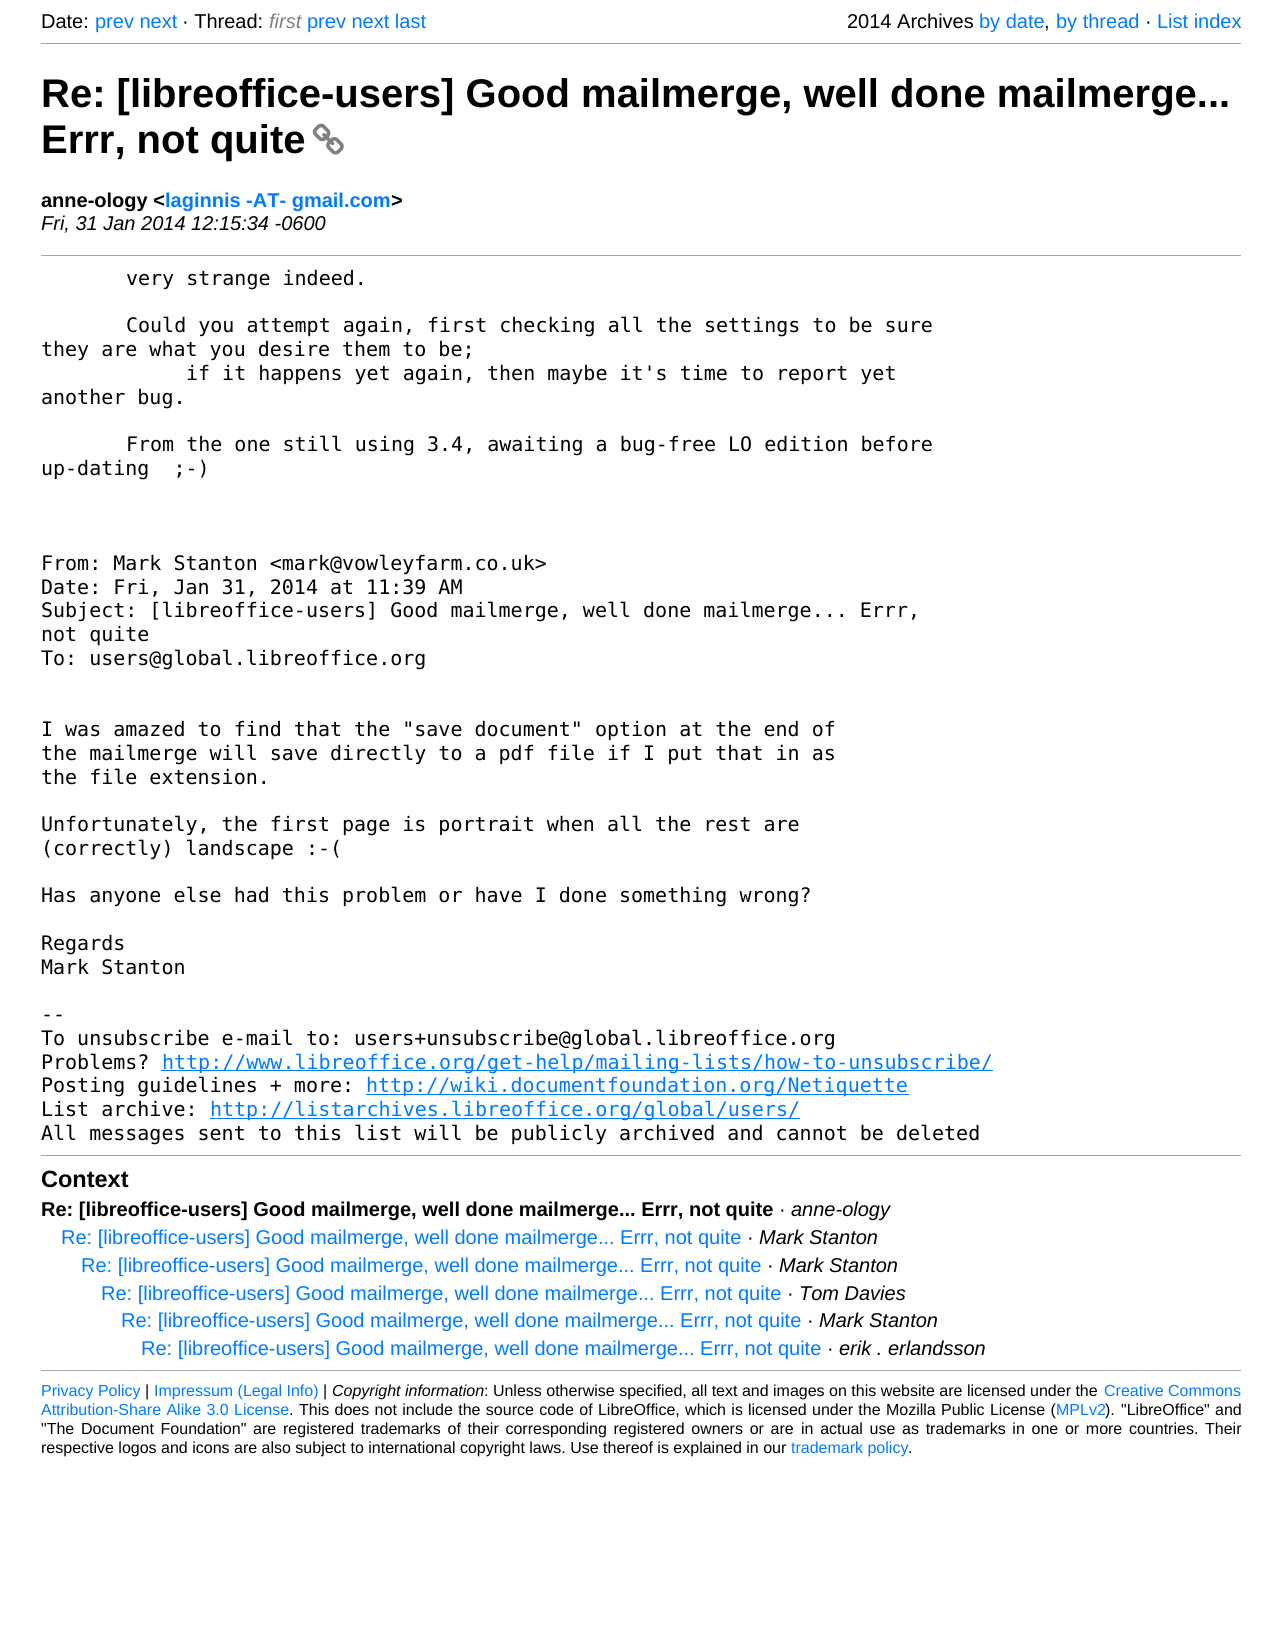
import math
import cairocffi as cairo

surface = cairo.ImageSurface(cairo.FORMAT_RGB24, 1282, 1644)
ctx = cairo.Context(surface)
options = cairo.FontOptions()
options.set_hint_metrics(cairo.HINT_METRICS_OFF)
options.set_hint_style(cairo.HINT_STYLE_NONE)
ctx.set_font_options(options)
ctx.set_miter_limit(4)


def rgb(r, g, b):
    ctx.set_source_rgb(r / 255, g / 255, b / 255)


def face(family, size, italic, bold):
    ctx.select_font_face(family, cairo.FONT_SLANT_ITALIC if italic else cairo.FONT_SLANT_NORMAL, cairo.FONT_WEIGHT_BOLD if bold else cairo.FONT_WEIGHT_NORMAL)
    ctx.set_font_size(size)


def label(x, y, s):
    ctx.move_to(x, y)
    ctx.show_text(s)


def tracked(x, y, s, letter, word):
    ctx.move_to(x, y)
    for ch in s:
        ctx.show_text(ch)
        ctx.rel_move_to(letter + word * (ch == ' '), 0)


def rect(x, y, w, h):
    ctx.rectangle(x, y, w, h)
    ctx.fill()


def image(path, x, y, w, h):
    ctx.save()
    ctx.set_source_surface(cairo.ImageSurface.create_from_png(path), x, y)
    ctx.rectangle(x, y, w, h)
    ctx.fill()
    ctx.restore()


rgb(255, 255, 255)
ctx.paint()
face('Liberation Sans', 20, 0, 0)
rgb(0, 0, 0)
label(41, 28, 'Date:')
rgb(0, 123, 255)
label(95, 28, 'prev next')
rgb(0, 0, 0)
label(182, 28, '· Thread:')
face('Liberation Sans', 20, 1, 0)
rgb(128, 128, 128)
label(269, 28, 'first')
face('Liberation Sans', 20, 0, 0)
rgb(0, 123, 255)
label(307, 28, 'prev next last')
rgb(0, 0, 0)
label(847, 28, '2014 Archives')
rgb(0, 123, 255)
label(979, 28, 'by date')
label(1056, 28, 'by thread')
rgb(0, 0, 0)
label(1145, 28, '·')
rgb(0, 123, 255)
label(1157, 28, 'List index')
rgb(0, 0, 0)
label(1044, 28, ',')
rgb(166, 166, 166)
rect(41, 43, 1200, 1)
face('Liberation Sans', 40, 0, 1)
rgb(0, 0, 0)
label(41, 107, 'Re: [libreoffice-users] Good mailmerge, well done mailmerge...')
label(41, 153, 'Errr, not quite')
image('image0.png', 312, 123, 32, 32)
face('Liberation Sans', 20, 0, 1)
label(41, 207, 'anne-ology <')
rgb(0, 123, 255)
label(165, 207, 'laginnis -AT- gmail.com')
rgb(0, 0, 0)
label(391, 207, '>')
face('Liberation Sans', 20, 1, 0)
label(41, 230, 'Fri, 31 Jan 2014 12:15:34 -0600')
rgb(166, 166, 166)
rect(41, 255, 1200, 1)
face('DejaVu Sans Mono', 20, 0, 0)
rgb(0, 0, 0)
label(126, 285, 'very strange indeed.')
label(126, 332, 'Could you attempt again, first checking all the settings to be sure')
label(41, 356, 'they are what you desire them to be;')
label(186, 380, 'if it happens yet again, then maybe it\'s time to report yet')
label(41, 404, 'another bug.')
label(126, 451, 'From the one still using 3.4, awaiting a bug-free LO edition before')
label(41, 475, 'up-dating  ;-)')
label(41, 570, 'From: Mark Stanton <mark@vowleyfarm.co.uk>')
label(41, 594, 'Date: Fri, Jan 31, 2014 at 11:39 AM')
label(41, 617, 'Subject: [libreoffice-users] Good mailmerge, well done mailmerge... Errr,')
label(41, 641, 'not quite')
label(41, 665, 'To: users@global.libreoffice.org')
label(41, 736, 'I was amazed to find that the "save document" option at the end of')
label(41, 760, 'the mailmerge will save directly to a pdf file if I put that in as')
label(41, 784, 'the file extension.')
label(41, 831, 'Unfortunately, the first page is portrait when all the rest are')
label(41, 855, '(correctly) landscape :-(')
label(41, 902, 'Has anyone else had this problem or have I done something wrong?')
label(41, 950, 'Regards')
label(41, 974, 'Mark Stanton')
label(41, 1021, '--')
label(41, 1045, 'To unsubscribe e-mail to: users+unsubscribe@global.libreoffice.org')
label(41, 1069, 'Problems?')
rgb(0, 123, 255)
rect(161, 1070, 832, 1)
label(162, 1069, 'http://www.libreoffice.org/get-help/mailing-lists/how-to-unsubscribe/')
rgb(0, 0, 0)
label(41, 1092, 'Posting guidelines + more:')
rgb(0, 123, 255)
rect(366, 1094, 543, 1)
label(366, 1092, 'http://wiki.documentfoundation.org/Netiquette')
rgb(0, 0, 0)
label(41, 1116, 'List archive:')
rgb(0, 123, 255)
rect(210, 1118, 590, 1)
label(210, 1116, 'http://listarchives.libreoffice.org/global/users/')
rgb(0, 0, 0)
label(41, 1140, 'All messages sent to this list will be publicly archived and cannot be deleted')
rgb(166, 166, 166)
rect(41, 1155, 1200, 1)
face('Liberation Sans', 23.5, 0, 1)
rgb(0, 0, 0)
label(41, 1187, 'Context')
face('Liberation Sans', 20, 0, 1)
label(41, 1216, 'Re: [libreoffice-users] Good mailmerge, well done mailmerge... Errr, not quite')
face('Liberation Sans', 20, 0, 0)
label(779, 1216, '·')
face('Liberation Sans', 20, 1, 0)
label(791, 1216, 'anne-ology')
face('Liberation Sans', 20, 0, 0)
rgb(0, 123, 255)
label(61, 1244, 'Re: [libreoffice-users] Good mailmerge, well done mailmerge... Errr, not quite')
rgb(0, 0, 0)
label(747, 1244, '·')
face('Liberation Sans', 20, 1, 0)
label(759, 1244, 'Mark Stanton')
face('Liberation Sans', 20, 0, 0)
rgb(0, 123, 255)
label(81, 1272, 'Re: [libreoffice-users] Good mailmerge, well done mailmerge... Errr, not quite')
rgb(0, 0, 0)
label(767, 1272, '·')
face('Liberation Sans', 20, 1, 0)
label(779, 1272, 'Mark Stanton')
face('Liberation Sans', 20, 0, 0)
rgb(0, 123, 255)
label(101, 1300, 'Re: [libreoffice-users] Good mailmerge, well done mailmerge... Errr, not quite')
rgb(0, 0, 0)
label(787, 1300, '·')
face('Liberation Sans', 20, 1, 0)
label(799, 1300, 'Tom Davies')
face('Liberation Sans', 20, 0, 0)
rgb(0, 123, 255)
label(121, 1327, 'Re: [libreoffice-users] Good mailmerge, well done mailmerge... Errr, not quite')
rgb(0, 0, 0)
label(807, 1327, '·')
face('Liberation Sans', 20, 1, 0)
label(819, 1327, 'Mark Stanton')
face('Liberation Sans', 20, 0, 0)
rgb(0, 123, 255)
label(141, 1355, 'Re: [libreoffice-users] Good mailmerge, well done mailmerge... Errr, not quite')
rgb(0, 0, 0)
label(827, 1355, '·')
face('Liberation Sans', 20, 1, 0)
label(839, 1355, 'erik . erlandsson')
rgb(166, 166, 166)
rect(41, 1370, 1200, 1)
face('Liberation Sans', 16, 0, 0)
rgb(0, 123, 255)
label(41, 1396, 'Privacy Policy')
rgb(0, 0, 0)
label(145, 1396, '|')
rgb(0, 123, 255)
label(154, 1396, 'Impressum (Legal Info)')
rgb(0, 0, 0)
label(323, 1396, '|')
face('Liberation Sans', 16, 1, 0)
label(332, 1396, 'Copyright information')
face('Liberation Sans', 16, 0, 0)
label(484, 1396, ': Unless otherwise specified, all text and images on this website are licensed under the')
rgb(0, 123, 255)
label(1104, 1396, 'Creative Commons')
tracked(41, 1415, 'Attribution-Share Alike 3.0 License', 0, 0.9)
rgb(0, 0, 0)
label(289, 1415, '.')
tracked(299, 1415, 'This does not include the source code of LibreOffice, which is', 0, 0.9)
tracked(748, 1415, 'licensed under the Mozilla Public License (', 0, 0.9)
rgb(0, 123, 255)
label(1056, 1415, 'MPLv2')
rgb(0, 0, 0)
label(1105, 1415, ').')
tracked(1121, 1415, '"LibreOffice" and', 0, 0.9)
tracked(41, 1434, '"The Document Foundation" are', 0, 2.25)
tracked(283, 1434, 'registered trademarks of their corresponding registered owners or are', 0, 2.25)
tracked(801, 1434, 'in actual use as trademarks in one or more countries. Their', 0, 2.25)
label(41, 1453, 'respective logos and icons are also subject to international copyright laws. Use thereof is explained in our')
rgb(0, 123, 255)
label(791, 1453, 'trademark policy')
rgb(0, 0, 0)
label(908, 1453, '.')
surface.write_to_png('render.png')
